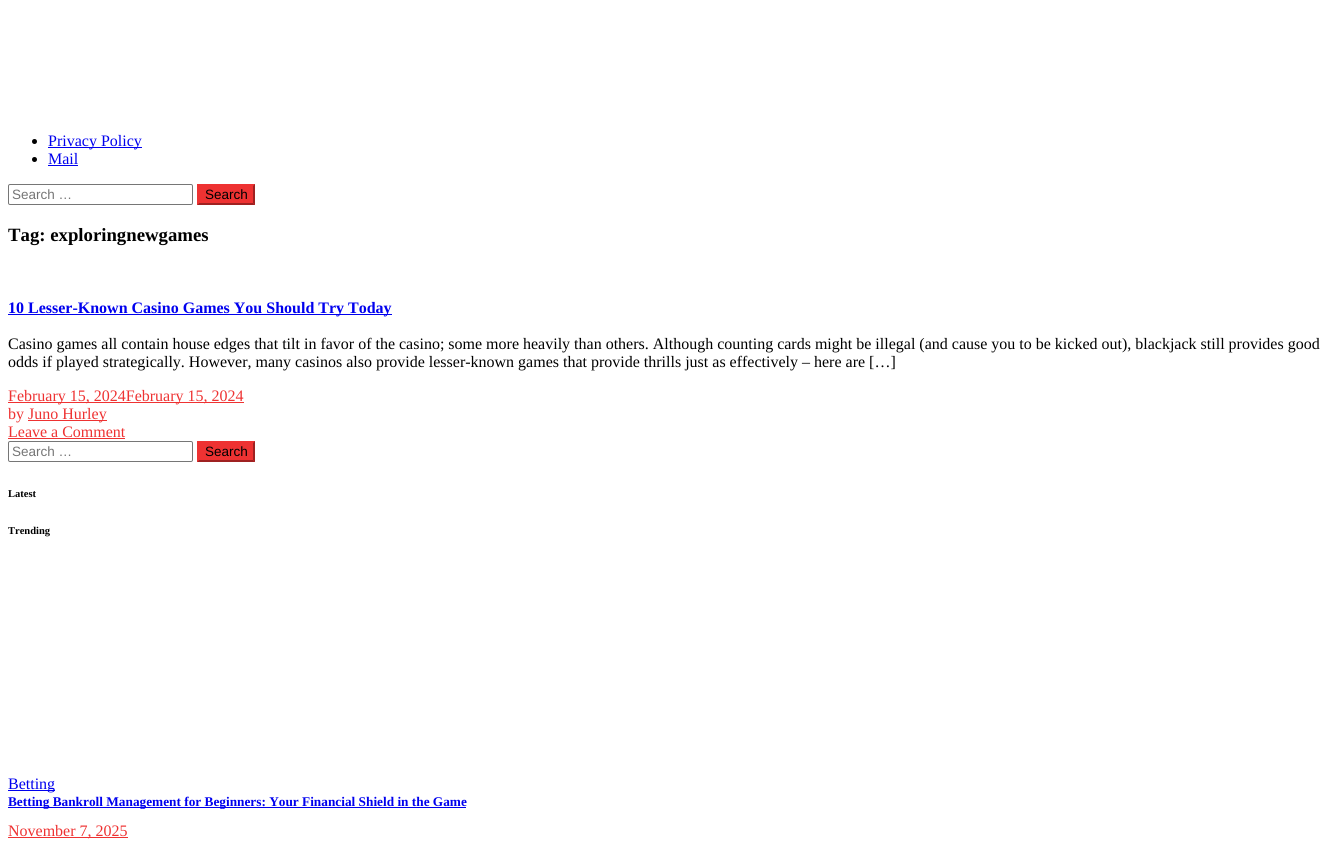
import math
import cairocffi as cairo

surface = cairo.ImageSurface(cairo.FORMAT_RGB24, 1333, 865)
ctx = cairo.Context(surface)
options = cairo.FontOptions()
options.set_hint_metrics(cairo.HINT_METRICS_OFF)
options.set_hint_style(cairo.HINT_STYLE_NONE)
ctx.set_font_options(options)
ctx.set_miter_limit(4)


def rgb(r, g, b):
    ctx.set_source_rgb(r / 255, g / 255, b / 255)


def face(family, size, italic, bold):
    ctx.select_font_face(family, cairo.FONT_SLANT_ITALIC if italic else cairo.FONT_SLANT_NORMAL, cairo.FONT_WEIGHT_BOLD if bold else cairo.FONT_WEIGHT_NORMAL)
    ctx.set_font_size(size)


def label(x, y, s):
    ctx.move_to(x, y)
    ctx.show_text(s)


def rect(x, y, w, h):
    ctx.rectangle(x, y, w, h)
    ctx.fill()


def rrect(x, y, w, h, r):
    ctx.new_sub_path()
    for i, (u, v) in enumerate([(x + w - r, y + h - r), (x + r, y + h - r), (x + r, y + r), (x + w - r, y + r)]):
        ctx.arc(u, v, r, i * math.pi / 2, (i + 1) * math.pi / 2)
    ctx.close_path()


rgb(255, 255, 255)
ctx.paint()
rgb(0, 0, 0)
ctx.arc(34.5, 141.5, 2.5, 0, 2 * math.pi)
ctx.fill()
rgb(0, 0, 238)
rect(48, 147, 94, 1)
face('Liberation Serif', 16, 0, 0)
label(48, 146, 'Privacy Policy')
rgb(0, 0, 0)
ctx.new_path()
ctx.arc(34.5, 159.5, 2.5, 0, 2 * math.pi)
ctx.fill()
rgb(0, 0, 238)
label(48, 164, 'Mail')
rect(48, 165, 30, 1)
rrect(8.5, 184.5, 184, 20, 1.5)
rgb(118, 118, 118)
ctx.set_line_width(1)
ctx.stroke()
face('Liberation Sans', 13.5, 0, 0)
rgb(117, 117, 117)
label(12, 199, 'Search …')
rgb(238, 50, 50)
rect(197, 184, 58, 21)
rgb(159, 33, 33)
ctx.new_path()
ctx.move_to(255, 184)
ctx.line_to(255, 205)
ctx.line_to(253, 203)
ctx.line_to(253, 186)
ctx.close_path()
ctx.fill()
ctx.new_path()
ctx.move_to(255, 205)
ctx.line_to(197, 205)
ctx.line_to(199, 203)
ctx.line_to(253, 203)
ctx.close_path()
ctx.fill()
rgb(238, 50, 50)
ctx.new_path()
ctx.move_to(197, 205)
ctx.line_to(197, 184)
ctx.line_to(199, 186)
ctx.line_to(199, 203)
ctx.close_path()
ctx.fill()
rgb(0, 0, 0)
label(205, 199, 'Search')
face('Liberation Serif', 18.75, 0, 1)
label(8, 241, 'Tag: exploringnewgames')
rgb(0, 0, 238)
rect(8, 314, 384, 1)
face('Liberation Serif', 16, 0, 1)
label(8, 313, '10 Lesser-Known Casino Games You Should Try Today')
face('Liberation Serif', 16, 0, 0)
rgb(0, 0, 0)
label(8, 349, 'Casino games all contain house edges that tilt in favor of the casino; some more heavily than others. Although counting cards might be illegal (and cause you to be kicked out), blackjack still provides good')
label(8, 367, 'odds if played strategically. However, many casinos also provide lesser-known games that provide thrills just as effectively – here are […]')
rgb(238, 50, 50)
rect(8, 402, 236, 1)
label(8, 401, 'February 15, 2024February 15, 2024')
label(8, 419, 'by')
rect(28, 420, 79, 1)
label(28, 419, 'Juno Hurley')
label(8, 437, 'Leave a Comment')
rect(8, 438, 117, 1)
rrect(8.5, 441.5, 184, 20, 1.5)
rgb(118, 118, 118)
ctx.stroke()
face('Liberation Sans', 13.5, 0, 0)
rgb(117, 117, 117)
label(12, 456, 'Search …')
rgb(238, 50, 50)
rect(197, 441, 58, 21)
rgb(159, 33, 33)
ctx.new_path()
ctx.move_to(255, 441)
ctx.line_to(255, 462)
ctx.line_to(253, 460)
ctx.line_to(253, 443)
ctx.close_path()
ctx.fill()
ctx.new_path()
ctx.move_to(255, 462)
ctx.line_to(197, 462)
ctx.line_to(199, 460)
ctx.line_to(253, 460)
ctx.close_path()
ctx.fill()
rgb(238, 50, 50)
ctx.new_path()
ctx.move_to(197, 462)
ctx.line_to(197, 441)
ctx.line_to(199, 443)
ctx.line_to(199, 460)
ctx.close_path()
ctx.fill()
rgb(0, 0, 0)
label(205, 456, 'Search')
face('Liberation Serif', 10.5, 0, 1)
label(8, 497, 'Latest')
label(8, 534, 'Trending')
rgb(0, 0, 238)
rect(8, 790, 47, 1)
face('Liberation Serif', 16, 0, 0)
label(8, 789, 'Betting')
rect(8, 807, 458, 1)
face('Liberation Serif', 13.3, 0, 1)
label(8, 806, 'Betting Bankroll Management for Beginners: Your Financial Shield in the Game')
rgb(238, 50, 50)
rect(8, 837, 120, 1)
face('Liberation Serif', 16, 0, 0)
label(8, 836, 'November 7, 2025')
surface.write_to_png('render.png')
